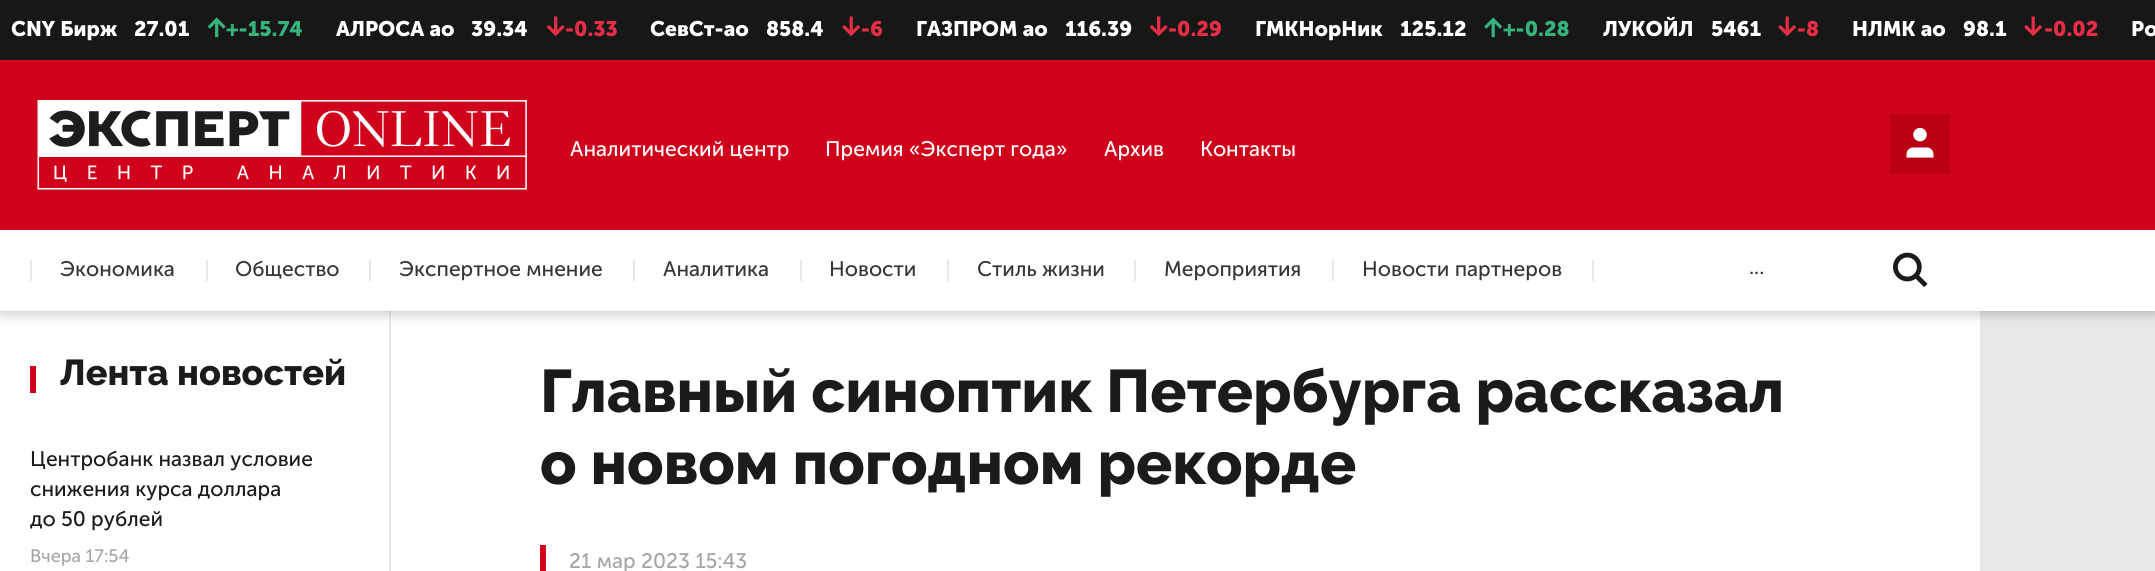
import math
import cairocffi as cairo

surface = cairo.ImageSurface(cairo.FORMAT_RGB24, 2155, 571)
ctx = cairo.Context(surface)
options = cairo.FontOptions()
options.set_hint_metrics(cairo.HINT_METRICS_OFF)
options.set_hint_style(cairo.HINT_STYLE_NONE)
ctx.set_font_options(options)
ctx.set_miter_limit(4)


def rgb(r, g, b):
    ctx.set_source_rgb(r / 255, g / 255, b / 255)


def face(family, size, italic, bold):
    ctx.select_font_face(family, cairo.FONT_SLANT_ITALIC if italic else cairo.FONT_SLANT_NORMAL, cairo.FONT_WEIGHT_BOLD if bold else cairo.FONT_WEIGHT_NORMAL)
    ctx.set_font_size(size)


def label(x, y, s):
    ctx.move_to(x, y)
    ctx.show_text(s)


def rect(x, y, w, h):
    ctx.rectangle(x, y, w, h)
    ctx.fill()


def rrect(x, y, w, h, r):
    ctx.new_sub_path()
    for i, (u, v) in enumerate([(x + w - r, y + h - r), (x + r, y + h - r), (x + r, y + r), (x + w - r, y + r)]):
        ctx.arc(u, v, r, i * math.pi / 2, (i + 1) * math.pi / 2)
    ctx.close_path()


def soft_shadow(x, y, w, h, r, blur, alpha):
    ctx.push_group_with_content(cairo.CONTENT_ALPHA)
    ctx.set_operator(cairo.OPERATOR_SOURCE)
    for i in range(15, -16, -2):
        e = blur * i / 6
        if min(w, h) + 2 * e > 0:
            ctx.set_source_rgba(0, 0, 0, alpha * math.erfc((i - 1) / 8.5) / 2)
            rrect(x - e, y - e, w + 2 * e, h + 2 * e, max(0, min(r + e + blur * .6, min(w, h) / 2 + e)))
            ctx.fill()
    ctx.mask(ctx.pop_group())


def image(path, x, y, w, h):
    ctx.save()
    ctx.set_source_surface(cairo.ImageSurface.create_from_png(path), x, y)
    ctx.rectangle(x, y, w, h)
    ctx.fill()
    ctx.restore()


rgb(232, 232, 232)
ctx.paint()
rgb(255, 255, 255)
rect(0, 311, 1980, 260)
rgb(232, 232, 232)
rect(389, 311, 2, 260)
rgb(0, 0, 0)
soft_shadow(0, 0, 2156, 311, 0, 7.5, 0.3)
rgb(23, 23, 23)
rect(0, 0, 2155, 60)
face('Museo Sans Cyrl', 21, 0, 1)
rgb(255, 255, 255)
label(11, 36, 'CNY Бирж')
label(134, 36, '27.01')
image('image0.png', 207, 17, 19, 21)
rgb(54, 179, 124)
label(226, 36, '+-15.74')
rgb(255, 255, 255)
label(336, 36, 'АЛРОСА ао')
label(471, 36, '39.34')
image('image1.png', 546, 16, 19, 21)
rgb(229, 46, 68)
label(565, 36, '-0.33')
rgb(255, 255, 255)
label(650, 36, 'СевСт-ао')
label(766, 36, '858.4')
image('image2.png', 842, 16, 19, 21)
rgb(229, 46, 68)
label(861, 36, '-6')
rgb(255, 255, 255)
label(916, 36, 'ГАЗПРОМ ао')
label(1065, 36, '116.39')
image('image1.png', 1149, 16, 19, 21)
rgb(229, 46, 68)
label(1168, 36, '-0.29')
rgb(255, 255, 255)
label(1255, 36, 'ГМКНорНик')
label(1400, 36, '125.12')
image('image3.png', 1484, 17, 19, 21)
rgb(54, 179, 124)
label(1503, 36, '+-0.28')
rgb(255, 255, 255)
label(1603, 36, 'ЛУКОЙЛ')
label(1711, 36, '5461')
image('image2.png', 1778, 16, 19, 21)
rgb(229, 46, 68)
label(1797, 36, '-8')
rgb(255, 255, 255)
label(1852, 36, 'НЛМК ао')
label(1963, 36, '98.1')
image('image2.png', 2024, 16, 19, 21)
rgb(229, 46, 68)
label(2044, 36, '-0.02')
rgb(255, 255, 255)
label(2131, 36, 'Ро')
rgb(208, 2, 27)
rect(0, 60, 2155, 170)
image('image4.png', 37, 100, 490, 90)
face('Museo Sans Cyrl', 21, 0, 0)
rgb(255, 255, 255)
label(570, 156, 'Аналитический центр')
label(825, 156, 'Премия «Эксперт года»')
label(1104, 156, 'Архив')
label(1200, 156, 'Контакты')
rgb(185, 1, 18)
rect(1890, 114, 60, 60)
image('image5.png', 1906, 127, 28, 31)
rgb(255, 255, 255)
rect(0, 230, 2155, 81)
rgb(232, 232, 232)
rect(30, 260, 2, 21)
rgb(54, 54, 54)
label(60, 276, 'Экономика')
rgb(232, 232, 232)
rect(206, 260, 2, 21)
rgb(54, 54, 54)
label(235, 276, 'Общество')
rgb(232, 232, 232)
rect(369, 260, 2, 21)
rgb(54, 54, 54)
label(399, 276, 'Экспертное мнение')
rgb(232, 232, 232)
rect(633, 260, 2, 21)
rgb(54, 54, 54)
label(663, 276, 'Аналитика')
rgb(232, 232, 232)
rect(800, 260, 2, 21)
rgb(54, 54, 54)
label(829, 276, 'Новости')
rgb(232, 232, 232)
rect(947, 260, 2, 21)
rgb(54, 54, 54)
label(977, 276, 'Стиль жизни')
rgb(232, 232, 232)
rect(1134, 260, 2, 21)
rgb(54, 54, 54)
label(1164, 276, 'Мероприятия')
rgb(232, 232, 232)
rect(1332, 260, 2, 21)
rgb(54, 54, 54)
label(1362, 276, 'Новости партнеров')
rgb(232, 232, 232)
rect(1592, 260, 2, 21)
rgb(54, 54, 54)
label(1749, 274, '...')
image('image6.png', 1893, 252, 35, 36)
rgb(208, 2, 27)
rect(30, 366, 6, 27)
face('Raleway ExtraBold', 36, 0, 0)
rgb(27, 27, 27)
label(60, 385, 'Лента новостей')
face('Museo Sans Cyrl', 21, 0, 0)
label(30, 466, 'Центробанк назвал условие')
label(30, 496, 'снижения курса доллара')
label(30, 526, 'до 50 рублей')
face('Museo Sans Cyrl', 18, 0, 0)
rgb(166, 166, 166)
label(30, 562, 'Вчера 17:54')
face('Raleway ExtraBold', 60, 0, 0)
rgb(27, 27, 27)
label(540, 412, 'Главный синоптик Петербурга рассказал')
label(540, 484, 'о новом погодном рекорде')
rgb(208, 2, 27)
rect(540, 545, 6, 26)
face('Museo Sans Cyrl', 21, 0, 0)
rgb(166, 166, 166)
label(569, 568, '21 мар 2023 15:43')
surface.write_to_png('render.png')
